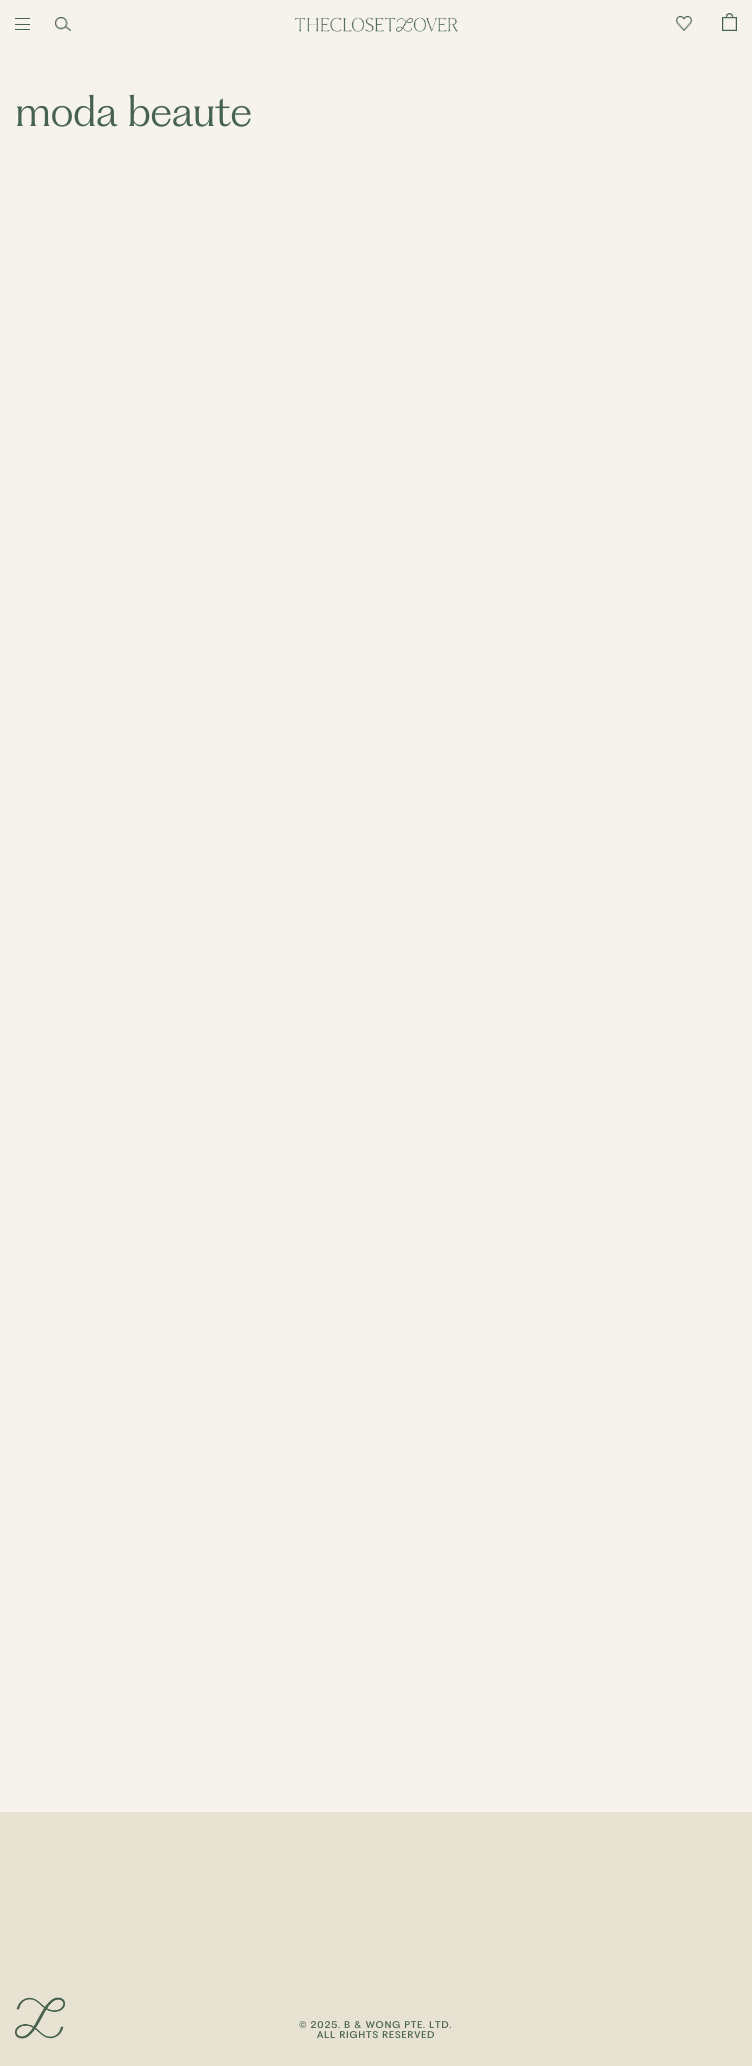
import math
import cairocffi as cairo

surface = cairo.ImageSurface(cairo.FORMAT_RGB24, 752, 2066)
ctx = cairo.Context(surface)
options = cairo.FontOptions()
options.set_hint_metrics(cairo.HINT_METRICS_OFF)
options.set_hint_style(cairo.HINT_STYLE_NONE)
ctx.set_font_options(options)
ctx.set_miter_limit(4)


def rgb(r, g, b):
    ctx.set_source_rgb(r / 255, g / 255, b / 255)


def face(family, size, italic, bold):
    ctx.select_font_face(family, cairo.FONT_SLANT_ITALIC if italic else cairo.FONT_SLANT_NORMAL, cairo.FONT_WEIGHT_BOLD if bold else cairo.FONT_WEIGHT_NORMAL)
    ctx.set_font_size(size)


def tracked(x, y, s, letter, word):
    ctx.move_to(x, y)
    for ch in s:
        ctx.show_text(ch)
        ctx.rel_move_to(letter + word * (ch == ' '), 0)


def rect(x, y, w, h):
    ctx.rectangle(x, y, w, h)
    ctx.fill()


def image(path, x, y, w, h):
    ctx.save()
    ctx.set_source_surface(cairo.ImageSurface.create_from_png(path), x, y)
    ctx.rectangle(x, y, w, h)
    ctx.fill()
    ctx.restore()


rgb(246, 243, 237)
ctx.paint()
rgb(71, 98, 79)
rect(15, 18, 15, 1)
rect(15, 24, 15, 1)
rect(15, 29, 15, 1)
image('image0.png', 55, 17, 16, 14)
image('image1.png', 295, 17, 163, 15)
image('image2.png', 676, 16, 16, 15)
image('image3.png', 722, 13, 15, 18)
face('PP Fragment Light', 40, 0, 0)
tracked(15, 126, 'moda beaute', -0.5, 0)
rgb(232, 226, 211)
rect(0, 1812, 752, 254)
image('image4.png', 15, 1997, 50, 42)
face('PP Fragment Medium', 9, 0, 0)
rgb(71, 98, 79)
tracked(299, 2028, '© 2025. B & WONG PTE. LTD.', 0.8, 0)
tracked(317, 2038, 'ALL RIGHTS RESERVED', 0.8, 0)
surface.write_to_png('render.png')
